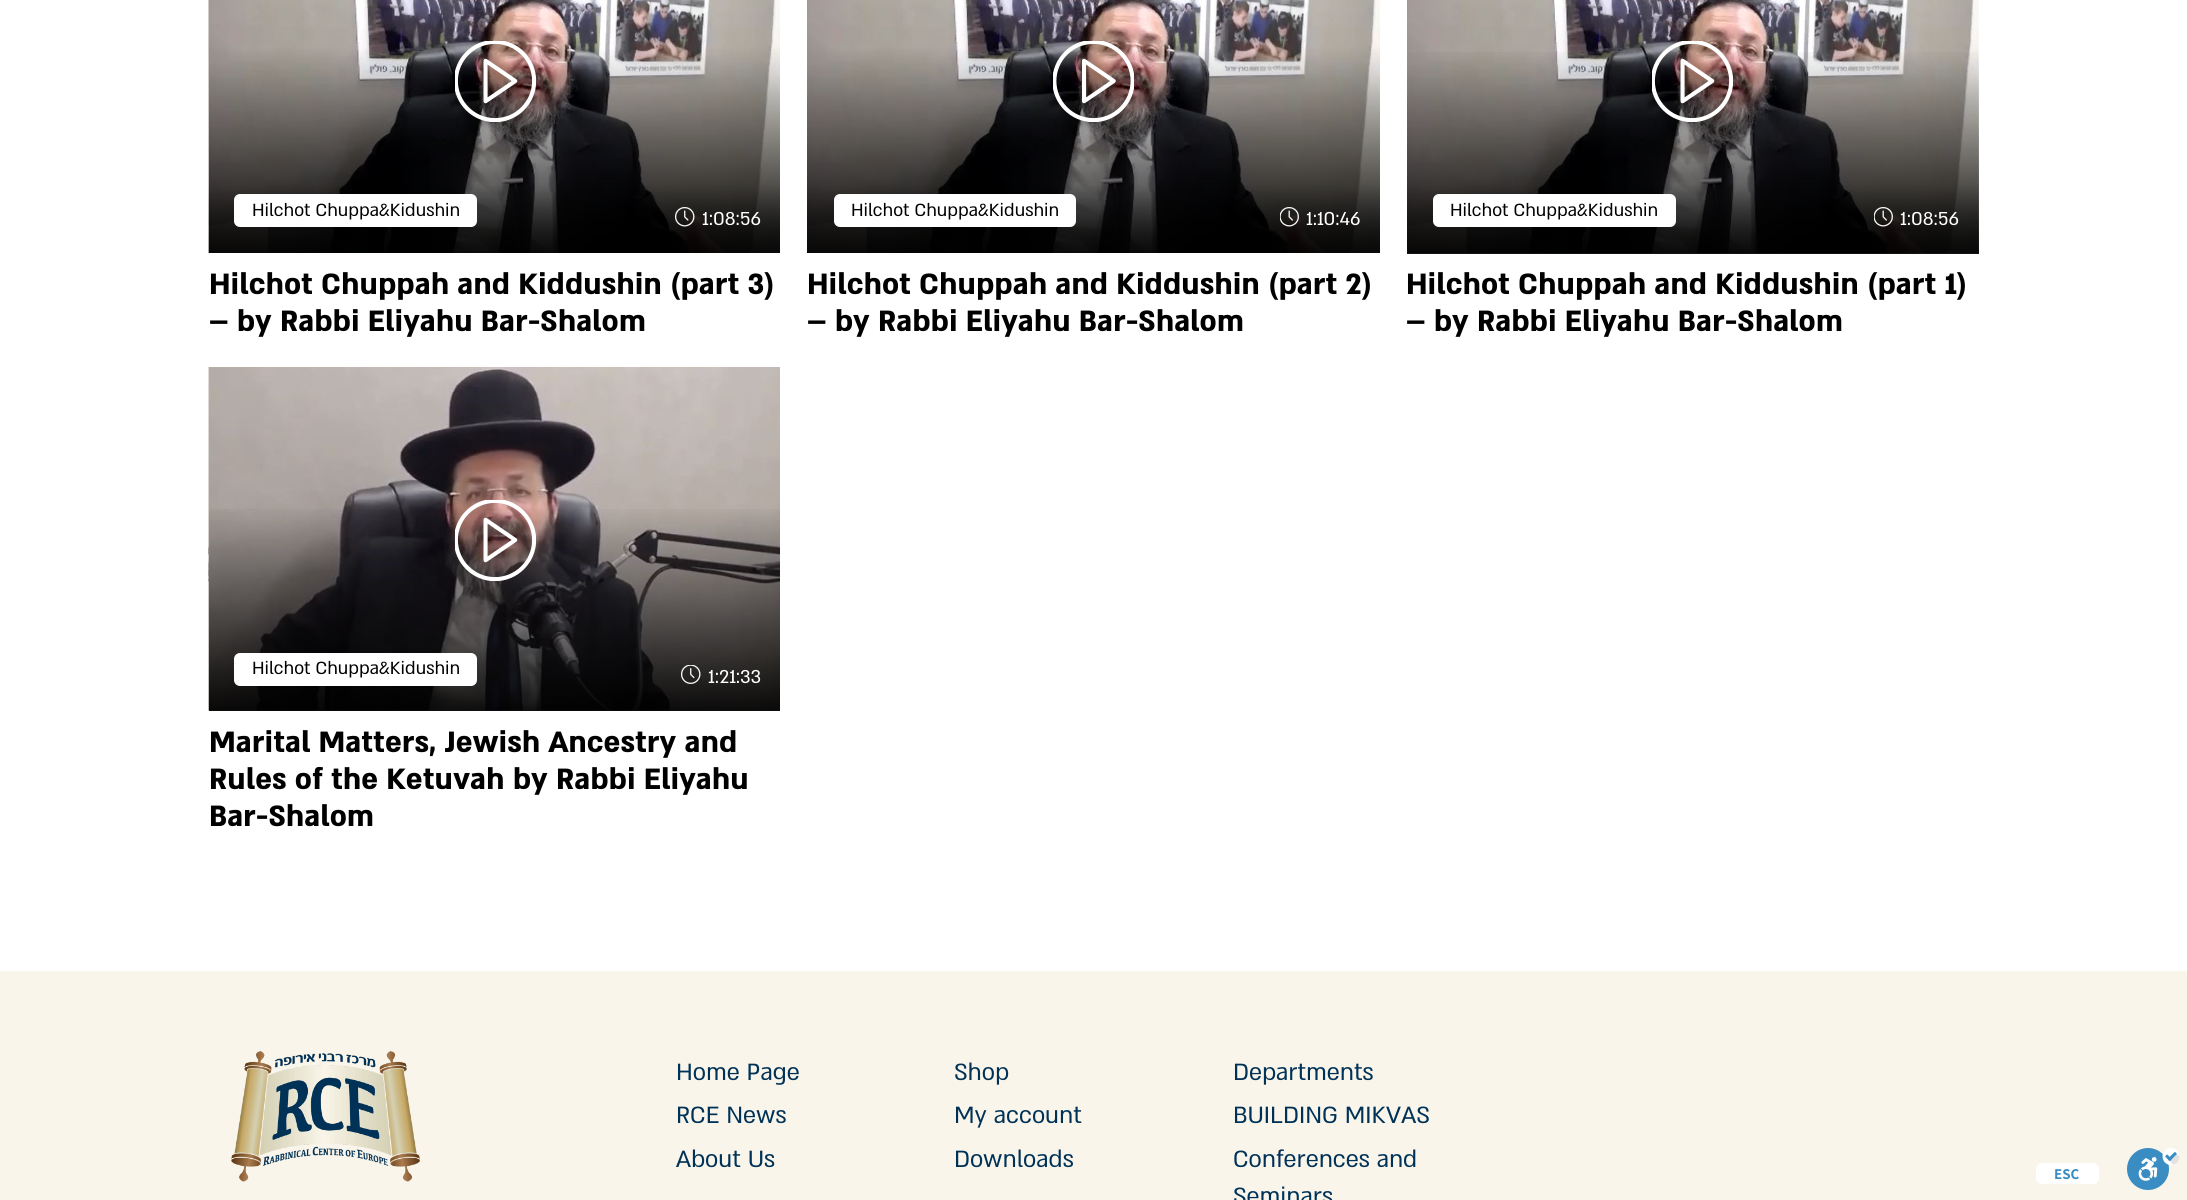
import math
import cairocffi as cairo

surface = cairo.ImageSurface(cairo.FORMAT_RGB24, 2187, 1200)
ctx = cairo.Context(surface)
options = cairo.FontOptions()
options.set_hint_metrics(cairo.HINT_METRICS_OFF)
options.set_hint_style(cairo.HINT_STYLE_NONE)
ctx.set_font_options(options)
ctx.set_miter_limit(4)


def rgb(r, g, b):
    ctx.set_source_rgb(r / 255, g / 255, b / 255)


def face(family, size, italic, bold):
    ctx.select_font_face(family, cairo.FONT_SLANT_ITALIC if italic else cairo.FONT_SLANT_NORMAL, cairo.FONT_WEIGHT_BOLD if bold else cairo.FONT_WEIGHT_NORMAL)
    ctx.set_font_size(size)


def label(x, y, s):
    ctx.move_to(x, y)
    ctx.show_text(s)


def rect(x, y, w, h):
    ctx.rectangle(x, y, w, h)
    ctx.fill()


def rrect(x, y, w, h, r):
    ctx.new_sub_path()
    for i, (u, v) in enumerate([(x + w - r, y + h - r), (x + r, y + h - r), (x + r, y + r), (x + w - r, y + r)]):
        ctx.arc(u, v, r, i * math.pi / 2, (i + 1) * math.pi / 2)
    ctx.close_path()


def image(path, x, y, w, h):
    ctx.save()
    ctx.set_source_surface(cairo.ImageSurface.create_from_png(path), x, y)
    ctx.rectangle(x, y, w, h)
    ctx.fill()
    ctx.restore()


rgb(255, 255, 255)
ctx.paint()
image('image0.png', 208, 0, 572, 253)
image('image1.png', 455, 41, 81, 81)
rgb(255, 255, 255)
rrect(234, 194, 243, 33, 6)
ctx.fill()
face('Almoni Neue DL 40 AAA', 20.25, 0, 0)
rgb(0, 0, 0)
label(252, 216, 'Hilchot Chuppa&Kidushin')
image('image2.png', 675, 207, 20, 20)
face('Almoni Neue DL 40 AAA', 21.5, 0, 0)
rgb(255, 255, 255)
label(702, 225, '1:08:56')
face('Almoni Neue DL 40 AAA', 33.75, 0, 1)
rgb(0, 0, 0)
label(209, 294, 'Hilchot Chuppah and Kiddushin (part 3)')
label(209, 331, '– by Rabbi Eliyahu Bar-Shalom')
image('image3.png', 807, 0, 573, 253)
image('image4.png', 1053, 41, 81, 81)
rgb(255, 255, 255)
rrect(834, 194, 242, 33, 6)
ctx.fill()
face('Almoni Neue DL 40 AAA', 20.25, 0, 0)
rgb(0, 0, 0)
label(851, 216, 'Hilchot Chuppa&Kidushin')
image('image5.png', 1280, 207, 19, 20)
face('Almoni Neue DL 40 AAA', 21.5, 0, 0)
rgb(255, 255, 255)
label(1306, 225, '1:10:46')
face('Almoni Neue DL 40 AAA', 33.75, 0, 1)
rgb(0, 0, 0)
label(807, 294, 'Hilchot Chuppah and Kiddushin (part 2)')
label(807, 331, '– by Rabbi Eliyahu Bar-Shalom')
image('image6.png', 1407, 0, 572, 253)
gradient = cairo.LinearGradient(1693, -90, 1693, 271)
gradient.add_color_stop_rgba(0.01, 0, 0, 0, 0)
gradient.add_color_stop_rgba(0.38, 0, 0, 0, 0)
gradient.add_color_stop_rgba(1, 0, 0, 0, 1)
ctx.set_source(gradient)
rect(1407, 52, 572, 202)
image('image7.png', 1652, 41, 81, 81)
rgb(255, 255, 255)
rrect(1433, 194, 243, 33, 6)
ctx.fill()
face('Almoni Neue DL 40 AAA', 20.25, 0, 0)
rgb(0, 0, 0)
label(1450, 216, 'Hilchot Chuppa&Kidushin')
image('image8.png', 1874, 207, 19, 20)
face('Almoni Neue DL 40 AAA', 21.5, 0, 0)
rgb(255, 255, 255)
label(1900, 225, '1:08:56')
face('Almoni Neue DL 40 AAA', 33.75, 0, 1)
rgb(0, 0, 0)
label(1406, 294, 'Hilchot Chuppah and Kiddushin (part 1)')
label(1406, 331, '– by Rabbi Eliyahu Bar-Shalom')
image('image9.png', 208, 367, 572, 344)
gradient = cairo.LinearGradient(494, 367, 494, 728)
gradient.add_color_stop_rgba(0.01, 0, 0, 0, 0)
gradient.add_color_stop_rgba(0.38, 0, 0, 0, 0)
gradient.add_color_stop_rgba(1, 0, 0, 0, 1)
ctx.set_source(gradient)
rect(209, 509, 571, 202)
image('image10.png', 455, 500, 81, 81)
rgb(255, 255, 255)
rrect(234, 653, 243, 33, 6)
ctx.fill()
face('Almoni Neue DL 40 AAA', 20.25, 0, 0)
rgb(0, 0, 0)
label(252, 674, 'Hilchot Chuppa&Kidushin')
image('image11.png', 681, 665, 20, 19)
face('Almoni Neue DL 40 AAA', 21.5, 0, 0)
rgb(255, 255, 255)
label(708, 683, '1:21:33')
face('Almoni Neue DL 40 AAA', 33.75, 0, 1)
rgb(0, 0, 0)
label(209, 752, 'Marital Matters, Jewish Ancestry and')
label(209, 789, 'Rules of the Ketuvah by Rabbi Eliyahu')
label(209, 826, 'Bar-Shalom')
rgb(249, 245, 234)
rect(0, 971, 2187, 229)
image('image12.png', 231, 1051, 189, 131)
face('Almoni Neue DL 40 AAA', 27, 0, 0)
rgb(0, 50, 87)
label(676, 1080, 'Home Page')
label(676, 1123, 'RCE News')
label(676, 1167, 'About Us')
label(954, 1080, 'Shop')
label(954, 1123, 'My account')
label(954, 1167, 'Downloads')
label(1233, 1080, 'Departments')
label(1233, 1123, 'BUILDING MIKVAS')
label(1233, 1167, 'Conferences and')
label(1233, 1204, 'Seminars')
rgb(255, 255, 255)
rrect(2036, 1163, 63, 21, 6)
ctx.fill()
face('Assistant', 15, 0, 1)
rgb(58, 141, 194)
label(2054, 1179, 'ESC')
image('image13.png', 2127, 1148, 53, 42)
surface.write_to_png('render.png')
